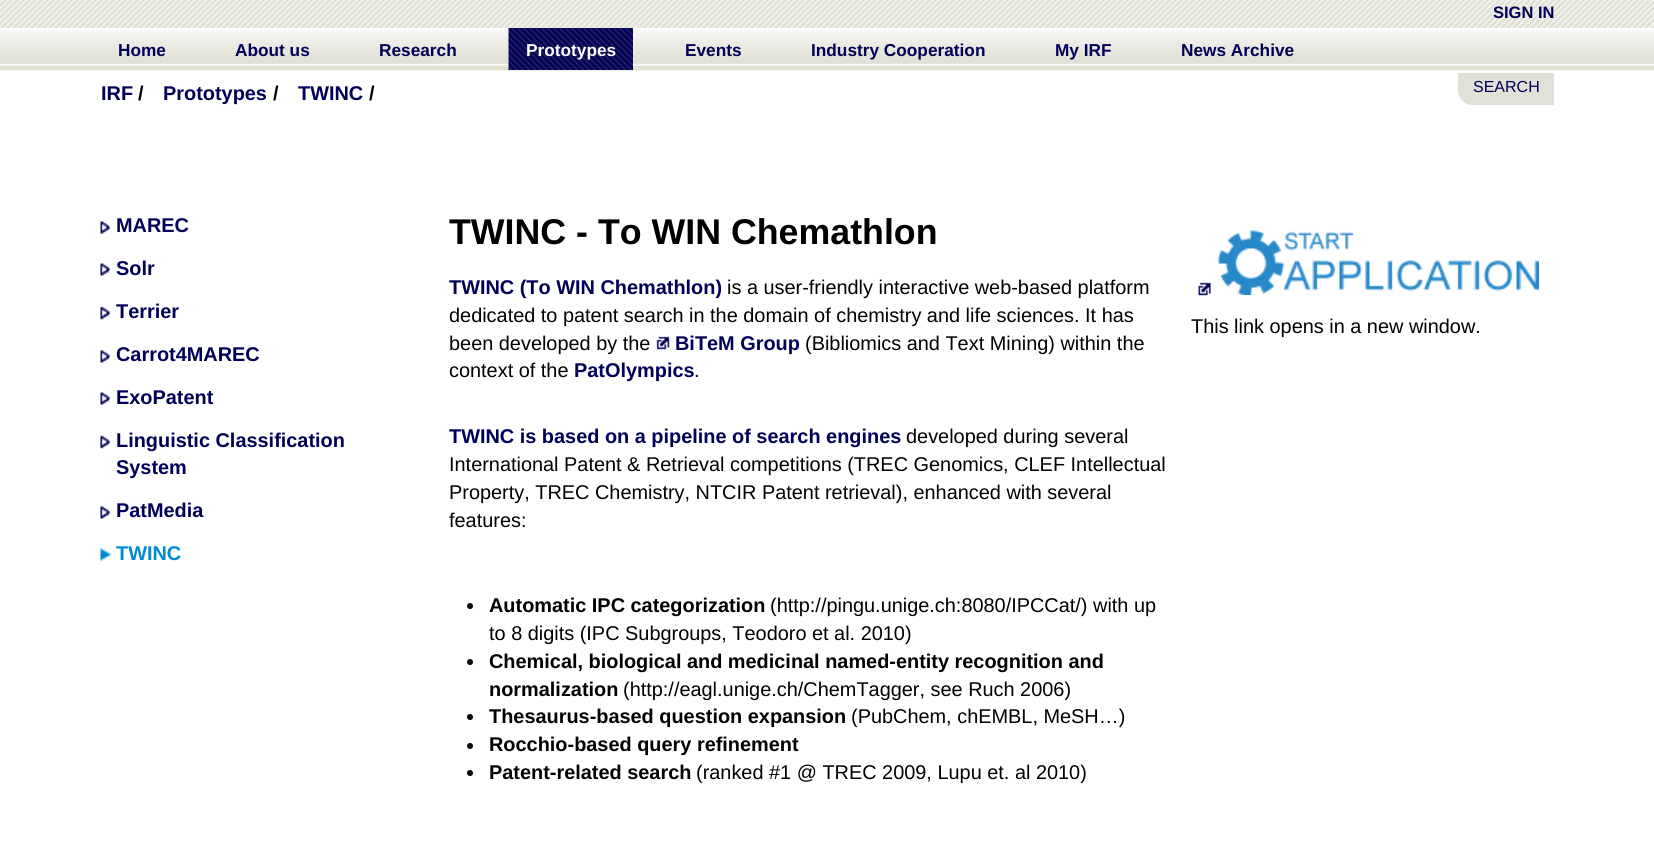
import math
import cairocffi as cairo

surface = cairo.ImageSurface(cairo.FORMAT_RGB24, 1654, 850)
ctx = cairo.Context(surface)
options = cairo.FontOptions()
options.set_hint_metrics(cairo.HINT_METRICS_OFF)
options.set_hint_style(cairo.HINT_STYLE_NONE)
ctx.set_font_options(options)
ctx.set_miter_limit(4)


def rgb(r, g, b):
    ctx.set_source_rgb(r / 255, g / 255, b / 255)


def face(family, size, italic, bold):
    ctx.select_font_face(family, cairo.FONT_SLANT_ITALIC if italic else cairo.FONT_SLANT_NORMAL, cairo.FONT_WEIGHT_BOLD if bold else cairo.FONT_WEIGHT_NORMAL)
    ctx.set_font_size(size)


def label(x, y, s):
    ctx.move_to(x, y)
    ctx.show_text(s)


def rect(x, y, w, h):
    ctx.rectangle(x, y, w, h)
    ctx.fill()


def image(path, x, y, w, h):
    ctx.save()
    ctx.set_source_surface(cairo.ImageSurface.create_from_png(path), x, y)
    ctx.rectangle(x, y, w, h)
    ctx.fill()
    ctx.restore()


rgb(255, 255, 255)
ctx.paint()
rgb(242, 242, 232)
rect(0, 70, 1654, 1)
image('image0.png', 0, 0, 1654, 28)
face('Liberation Sans', 16.5, 0, 1)
rgb(0, 0, 88)
label(1493, 18, 'SIGN IN')
image('image1.png', 0, 28, 1654, 42)
face('Liberation Sans', 17.25, 0, 1)
label(118, 56, 'Home')
label(235, 56, 'About us')
label(379, 56, 'Research')
image('image2.png', 508, 28, 125, 42)
rgb(255, 255, 255)
label(526, 56, 'Prototypes')
rgb(0, 0, 88)
label(685, 56, 'Events')
label(811, 56, 'Industry Cooperation')
label(1055, 56, 'My IRF')
label(1181, 56, 'News Archive')
face('Liberation Sans', 19.9, 0, 1)
label(101, 100, 'IRF')
rgb(0, 0, 0)
label(138, 100, '/')
rgb(0, 0, 88)
label(163, 100, 'Prototypes')
rgb(0, 0, 0)
label(273, 100, '/')
rgb(0, 0, 88)
label(298, 100, 'TWINC')
rgb(0, 0, 0)
label(369, 100, '/')
rgb(225, 225, 215)
ctx.new_path()
ctx.move_to(1458, 71)
ctx.line_to(1554, 71)
ctx.line_to(1554, 105)
ctx.line_to(1473, 105)
ctx.curve_to(1464.5, 105, 1458, 98.5, 1458, 90)
ctx.close_path()
ctx.fill()
rgb(255, 255, 255)
rect(1458, 71, 96, 2)
face('Liberation Sans', 16, 0, 0)
rgb(0, 0, 88)
label(1473, 92, 'SEARCH')
image('image3.png', 100, 221, 10, 13)
face('Liberation Sans', 19.9, 0, 1)
label(116, 232, 'MAREC')
image('image3.png', 100, 263, 10, 13)
label(116, 275, 'Solr')
image('image4.png', 100, 306, 10, 14)
label(116, 318, 'Terrier')
image('image3.png', 100, 350, 10, 13)
label(116, 361, 'Carrot4MAREC')
image('image3.png', 100, 392, 10, 13)
label(116, 404, 'ExoPatent')
image('image4.png', 100, 435, 10, 14)
label(116, 447, 'Linguistic Classification')
label(116, 474, 'System')
image('image3.png', 100, 506, 10, 13)
label(116, 517, 'PatMedia')
image('image5.png', 100, 548, 12, 13)
rgb(0, 137, 214)
label(116, 560, 'TWINC')
face('Liberation Sans', 35.75, 0, 1)
rgb(0, 0, 0)
label(449, 244, 'TWINC - To WIN Chemathlon')
face('Liberation Sans', 19.9, 0, 1)
rgb(0, 0, 88)
label(449, 294, 'TWINC (To WIN Chemathlon)')
face('Liberation Sans', 19.9, 0, 0)
rgb(0, 0, 0)
label(727, 294, 'is a user-friendly interactive web-based platform')
label(449, 322, 'dedicated to patent search in the domain of chemistry and life sciences. It has')
label(449, 350, 'been developed by the')
image('image6.png', 656, 336, 14, 14)
face('Liberation Sans', 19.9, 0, 1)
rgb(0, 0, 88)
label(675, 350, 'BiTeM Group')
face('Liberation Sans', 19.9, 0, 0)
rgb(0, 0, 0)
label(805, 350, '(Bibliomics and Text Mining) within the')
label(449, 377, 'context of the')
face('Liberation Sans', 19.9, 0, 1)
rgb(0, 0, 88)
label(574, 377, 'PatOlympics')
face('Liberation Sans', 19.9, 0, 0)
rgb(0, 0, 0)
label(694, 377, '.')
face('Liberation Sans', 19.9, 0, 1)
rgb(0, 0, 88)
label(449, 443, 'TWINC is based on a pipeline of search engines')
face('Liberation Sans', 19.9, 0, 0)
rgb(0, 0, 0)
label(906, 443, 'developed during several')
label(449, 471, 'International Patent & Retrieval competitions (TREC Genomics, CLEF Intellectual')
label(449, 499, 'Property, TREC Chemistry, NTCIR Patent retrieval), enhanced with several')
label(449, 527, 'features:')
ctx.new_path()
ctx.arc(470, 606, 3, 0, 2 * math.pi)
ctx.fill()
face('Liberation Sans', 19.9, 0, 1)
label(489, 612, 'Automatic IPC categorization')
face('Liberation Sans', 19.9, 0, 0)
label(770, 612, '(http://pingu.unige.ch:8080/IPCCat/) with up')
label(489, 640, 'to 8 digits (IPC Subgroups, Teodoro et al. 2010)')
ctx.new_path()
ctx.arc(470, 662, 3, 0, 2 * math.pi)
ctx.fill()
face('Liberation Sans', 19.9, 0, 1)
label(489, 668, 'Chemical, biological and medicinal named-entity recognition and')
label(489, 696, 'normalization')
face('Liberation Sans', 19.9, 0, 0)
label(623, 696, '(http://eagl.unige.ch/ChemTagger, see Ruch 2006)')
ctx.new_path()
ctx.arc(470, 717, 3, 0, 2 * math.pi)
ctx.fill()
face('Liberation Sans', 19.9, 0, 1)
label(489, 723, 'Thesaurus-based question expansion')
face('Liberation Sans', 19.9, 0, 0)
label(851, 723, '(PubChem, chEMBL, MeSH…)')
ctx.new_path()
ctx.arc(470, 746, 3, 0, 2 * math.pi)
ctx.fill()
face('Liberation Sans', 19.9, 0, 1)
label(489, 751, 'Rocchio-based query refinement')
ctx.new_path()
ctx.arc(470, 773, 3, 0, 2 * math.pi)
ctx.fill()
label(489, 779, 'Patent-related search')
face('Liberation Sans', 19.9, 0, 0)
label(696, 779, '(ranked #1 @ TREC 2009, Lupu et. al 2010)')
image('image7.png', 1198, 282, 13, 14)
image('image8.png', 1217, 230, 322, 65)
label(1191, 333, 'This link opens in a new window.')
surface.write_to_png('render.png')
